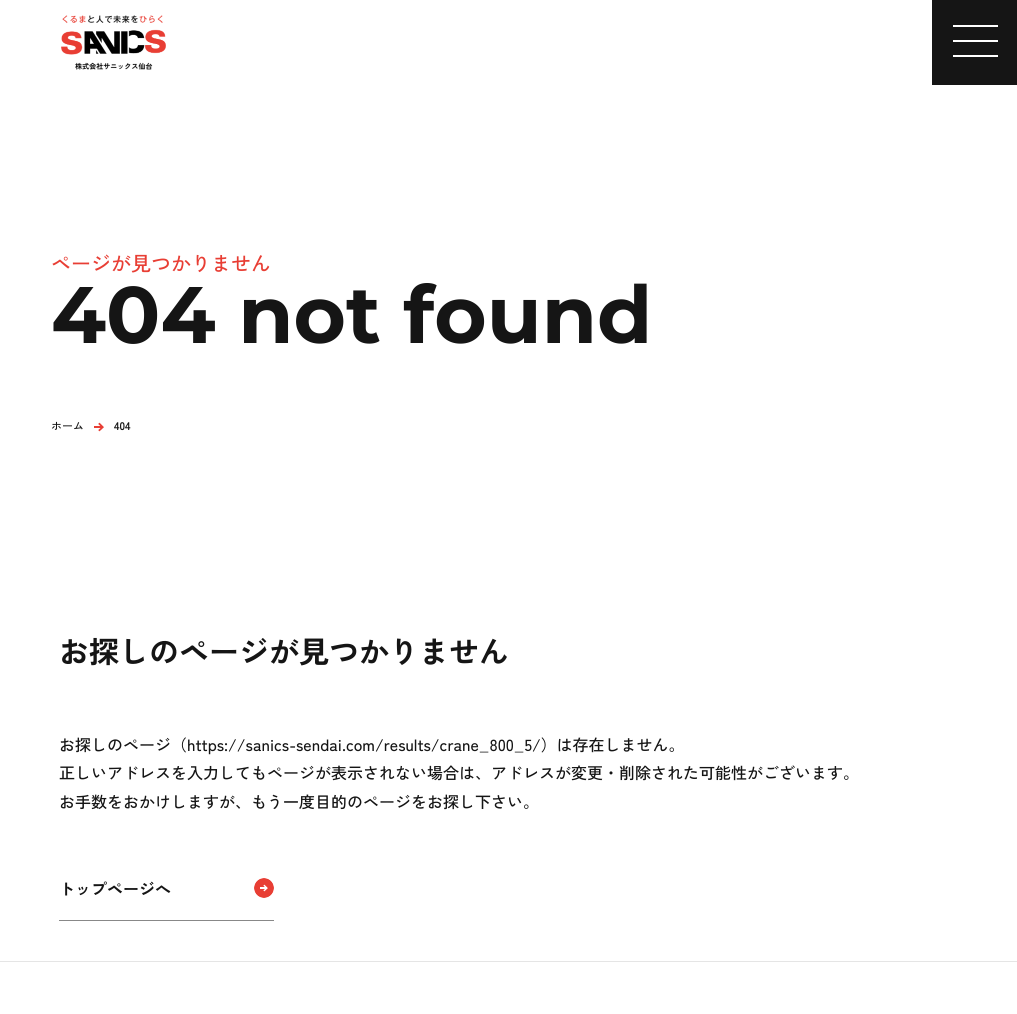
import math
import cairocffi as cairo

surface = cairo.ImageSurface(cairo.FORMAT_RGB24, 1017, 1014)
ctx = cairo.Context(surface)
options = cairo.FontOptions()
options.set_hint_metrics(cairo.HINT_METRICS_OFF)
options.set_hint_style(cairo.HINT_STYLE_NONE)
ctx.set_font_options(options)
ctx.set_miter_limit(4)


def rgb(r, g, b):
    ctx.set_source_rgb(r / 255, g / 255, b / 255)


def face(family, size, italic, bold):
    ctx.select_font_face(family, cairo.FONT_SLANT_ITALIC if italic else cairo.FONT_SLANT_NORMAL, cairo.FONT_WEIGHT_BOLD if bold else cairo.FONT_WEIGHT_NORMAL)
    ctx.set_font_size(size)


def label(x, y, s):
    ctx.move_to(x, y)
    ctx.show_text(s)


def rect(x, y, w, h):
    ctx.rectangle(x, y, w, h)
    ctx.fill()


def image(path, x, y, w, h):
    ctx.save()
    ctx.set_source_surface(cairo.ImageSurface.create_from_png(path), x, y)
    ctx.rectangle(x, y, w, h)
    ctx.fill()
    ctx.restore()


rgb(255, 255, 255)
ctx.paint()
image('image0.png', 61, 15, 105, 55)
rgb(21, 21, 21)
rect(932, 0, 85, 85)
rgb(255, 255, 255)
rect(953, 40, 45, 2)
rect(953, 25, 45, 2)
rect(953, 55, 45, 2)
face('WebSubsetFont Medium', 20, 0, 0)
rgb(232, 62, 52)
label(51, 271, 'ページが見つかりません')
face('Montserrat Thin', 80, 0, 0)
rgb(21, 21, 21)
label(51, 343, '404 not found')
face('WebSubsetFont Medium', 11, 0, 0)
label(51, 430, 'ホーム')
image('image1.png', 94, 422, 10, 10)
face('WebSubsetFont', 11, 0, 1)
label(114, 430, '404')
face('WebSubsetFont', 30, 0, 1)
label(59, 663, 'お探しのページが見つかりません')
face('WebSubsetFont Medium', 16, 0, 0)
label(59, 751, 'お探しのページ（https://sanics-sendai.com/results/crane_800_5/）は存在しません。')
label(59, 779, '正しいアドレスを入力してもページが表示されない場合は、アドレスが変更・削除された可能性がございます。')
label(59, 808, 'お手数をおかけしますが、もう一度目的のページをお探し下さい。')
rgb(136, 136, 136)
rect(59, 920, 215, 1)
face('WebSubsetFont', 16, 0, 1)
rgb(21, 21, 21)
label(59, 895, 'トップページへ')
image('image2.png', 254, 878, 20, 20)
rgb(229, 229, 229)
rect(0, 961, 1017, 1)
surface.write_to_png('render.png')
